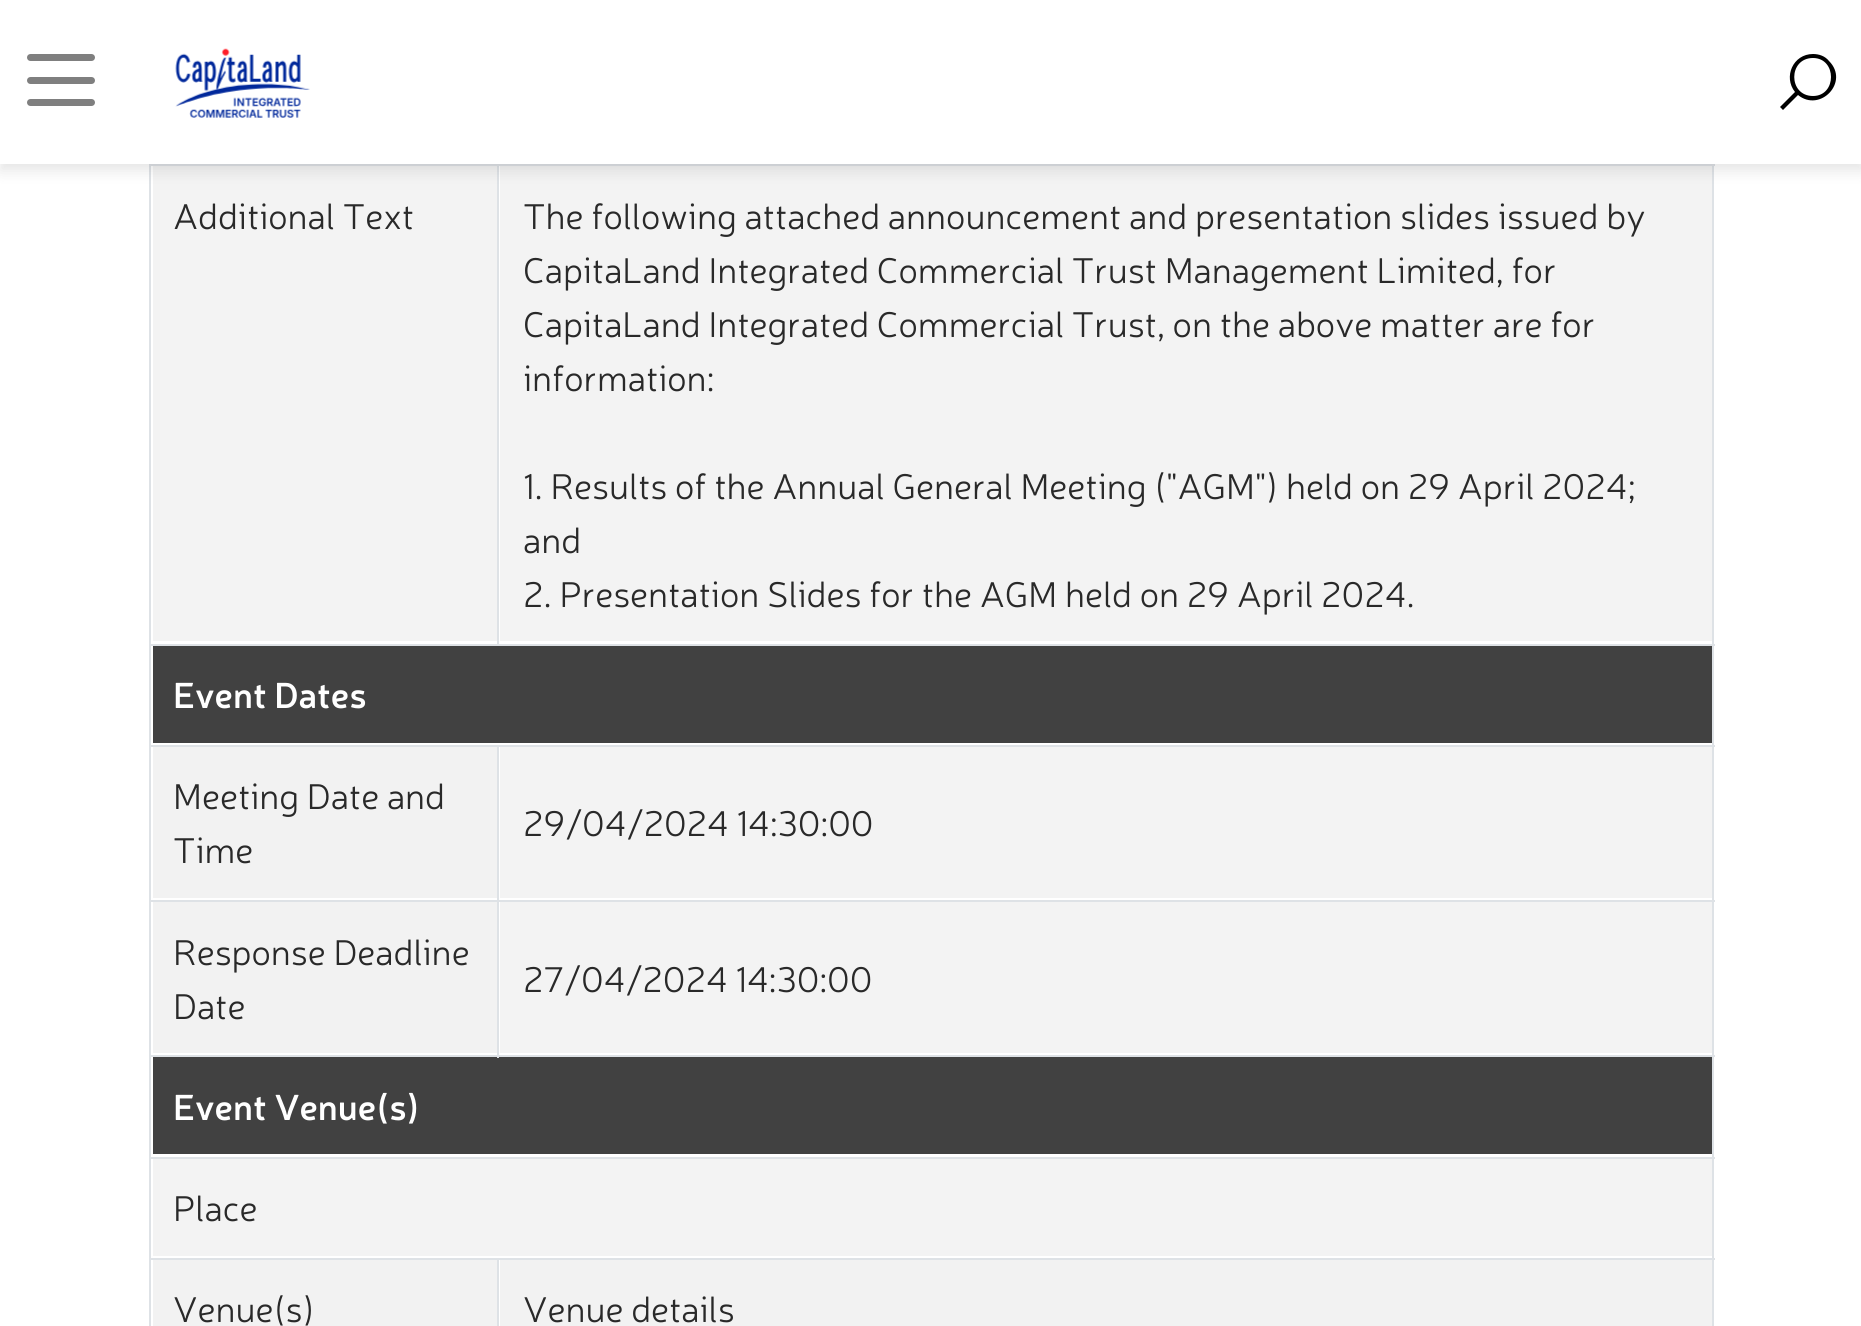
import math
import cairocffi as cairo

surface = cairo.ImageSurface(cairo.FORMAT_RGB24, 1861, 1326)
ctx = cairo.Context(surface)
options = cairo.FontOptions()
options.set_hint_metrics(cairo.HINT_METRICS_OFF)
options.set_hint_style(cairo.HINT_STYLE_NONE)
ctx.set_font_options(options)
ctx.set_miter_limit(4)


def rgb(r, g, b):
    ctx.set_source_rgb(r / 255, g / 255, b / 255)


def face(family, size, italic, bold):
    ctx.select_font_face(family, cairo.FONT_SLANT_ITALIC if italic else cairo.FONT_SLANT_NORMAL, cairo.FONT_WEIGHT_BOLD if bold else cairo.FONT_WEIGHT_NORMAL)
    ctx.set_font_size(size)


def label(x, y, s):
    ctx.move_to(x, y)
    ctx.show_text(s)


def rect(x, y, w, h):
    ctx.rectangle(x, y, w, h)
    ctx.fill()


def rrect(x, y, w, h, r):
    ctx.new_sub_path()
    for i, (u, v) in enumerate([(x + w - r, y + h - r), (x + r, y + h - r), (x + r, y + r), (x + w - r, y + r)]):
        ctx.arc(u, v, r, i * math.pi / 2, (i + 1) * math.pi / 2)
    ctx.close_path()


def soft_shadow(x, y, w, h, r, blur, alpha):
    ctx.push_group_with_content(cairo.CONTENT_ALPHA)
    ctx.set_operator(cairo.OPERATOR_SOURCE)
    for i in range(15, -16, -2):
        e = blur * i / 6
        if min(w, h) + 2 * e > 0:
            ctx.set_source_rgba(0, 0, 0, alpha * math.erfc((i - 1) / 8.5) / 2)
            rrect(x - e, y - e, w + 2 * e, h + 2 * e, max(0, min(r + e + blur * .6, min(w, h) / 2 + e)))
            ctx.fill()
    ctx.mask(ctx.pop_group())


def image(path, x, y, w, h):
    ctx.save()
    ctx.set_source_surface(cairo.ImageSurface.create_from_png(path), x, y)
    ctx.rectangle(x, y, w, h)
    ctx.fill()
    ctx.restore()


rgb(255, 255, 255)
ctx.paint()
rgb(222, 226, 230)
rect(1712, 164, 2, 1162)
rect(497, 644, 1218, 2)
rect(497, 164, 2, 482)
rect(497, 1055, 1218, 2)
rgb(65, 65, 65)
rect(153, 1057, 1559, 97)
rgb(222, 226, 230)
rect(497, 900, 2, 158)
rect(497, 900, 1218, 2)
rect(497, 745, 2, 157)
rect(497, 1258, 2, 68)
rect(149, 1258, 2, 68)
rect(149, 1258, 1566, 2)
rect(149, 1157, 2, 103)
rect(149, 1157, 1566, 2)
rect(149, 1055, 2, 104)
rect(149, 1055, 351, 2)
rect(149, 900, 2, 158)
rect(149, 900, 351, 2)
rect(149, 745, 2, 157)
rect(149, 745, 1566, 2)
rect(149, 644, 2, 103)
rect(149, 644, 351, 2)
rect(149, 164, 2, 482)
rect(149, 164, 1566, 2)
rgb(243, 243, 243)
rect(153, 166, 344, 475)
rect(500, 166, 1212, 475)
rgb(0, 0, 0)
soft_shadow(0, 7, 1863, 164, 0, 7, 0.1)
rgb(255, 255, 255)
rect(0, 0, 1861, 164)
rgb(127, 127, 127)
ctx.new_path()
ctx.move_to(30.5, 54)
ctx.line_to(61, 54)
ctx.line_to(61, 61)
ctx.line_to(30.5, 61)
ctx.curve_to(28.5, 61, 27, 59.5, 27, 57.5)
ctx.curve_to(27, 55.5, 28.5, 54, 30.5, 54)
ctx.close_path()
ctx.fill()
ctx.new_path()
ctx.move_to(61, 54)
ctx.line_to(91.5, 54)
ctx.curve_to(93.5, 54, 95, 55.5, 95, 57.5)
ctx.curve_to(95, 59.5, 93.5, 61, 91.5, 61)
ctx.line_to(61, 61)
ctx.close_path()
ctx.fill()
ctx.new_path()
ctx.move_to(30.5, 77)
ctx.line_to(61, 77)
ctx.line_to(61, 84)
ctx.line_to(30.5, 84)
ctx.curve_to(28.5, 84, 27, 82.5, 27, 80.5)
ctx.curve_to(27, 78.5, 28.5, 77, 30.5, 77)
ctx.close_path()
ctx.fill()
ctx.new_path()
ctx.move_to(61, 77)
ctx.line_to(91.5, 77)
ctx.curve_to(93.5, 77, 95, 78.5, 95, 80.5)
ctx.curve_to(95, 82.5, 93.5, 84, 91.5, 84)
ctx.line_to(61, 84)
ctx.close_path()
ctx.fill()
ctx.new_path()
ctx.move_to(30.5, 99)
ctx.line_to(61, 99)
ctx.line_to(61, 106)
ctx.line_to(30.5, 106)
ctx.curve_to(28.5, 106, 27, 104.5, 27, 102.5)
ctx.curve_to(27, 100.5, 28.5, 99, 30.5, 99)
ctx.close_path()
ctx.fill()
ctx.new_path()
ctx.move_to(61, 99)
ctx.line_to(91.5, 99)
ctx.curve_to(93.5, 99, 95, 100.5, 95, 102.5)
ctx.curve_to(95, 104.5, 93.5, 106, 91.5, 106)
ctx.line_to(61, 106)
ctx.close_path()
ctx.fill()
image('image0.png', 175, 48, 135, 70)
rgb(0, 0, 0)
ctx.new_path()
ctx.move_to(1813, 54)
ctx.curve_to(1793, 54, 1783, 77, 1795, 92)
ctx.line_to(1780, 107)
ctx.line_to(1783, 110)
ctx.line_to(1798, 95)
ctx.curve_to(1820, 113, 1850, 82, 1829, 61)
ctx.curve_to(1825, 56, 1819, 54, 1813, 54)
ctx.close_path()
ctx.move_to(1813, 96)
ctx.curve_to(1788, 96, 1788, 58, 1813, 58)
ctx.curve_to(1837, 58, 1837, 96, 1813, 96)
ctx.close_path()
ctx.fill()
face('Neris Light', 36, 0, 0)
rgb(41, 41, 41)
label(173, 229, 'Additional Text')
label(523, 229, 'The following attached announcement and presentation slides issued by')
label(523, 283, 'CapitaLand Integrated Commercial Trust Management Limited, for')
label(523, 337, 'CapitaLand Integrated Commercial Trust, on the above matter are for')
label(523, 391, 'information:')
label(523, 499, '1. Results of the Annual General Meeting ("AGM") held on 29 April 2024;')
label(523, 553, 'and')
label(523, 607, '2. Presentation Slides for the AGM held on 29 April 2024.')
rgb(65, 65, 65)
rect(153, 646, 1559, 97)
face('Neris SemiBold', 36, 0, 0)
rgb(255, 255, 255)
label(173, 708, 'Event Dates')
rgb(242, 242, 242)
rect(153, 747, 344, 151)
face('Neris Light', 36, 0, 0)
rgb(41, 41, 41)
label(173, 809, 'Meeting Date and')
label(173, 863, 'Time')
rgb(243, 243, 243)
rect(500, 747, 1212, 151)
rgb(41, 41, 41)
label(523, 836, '29/04/2024 14:30:00')
rgb(242, 242, 242)
rect(153, 902, 344, 151)
rgb(41, 41, 41)
label(173, 965, 'Response Deadline')
label(173, 1019, 'Date')
rgb(243, 243, 243)
rect(500, 902, 1212, 151)
rgb(41, 41, 41)
label(523, 992, '27/04/2024 14:30:00')
face('Neris SemiBold', 36, 0, 0)
rgb(255, 255, 255)
label(173, 1120, 'Event Venue(s)')
rgb(243, 243, 243)
rect(153, 1159, 1559, 97)
face('Neris Light', 36, 0, 0)
rgb(41, 41, 41)
label(173, 1221, 'Place')
rgb(242, 242, 242)
rect(153, 1260, 344, 66)
rgb(41, 41, 41)
label(173, 1322, 'Venue(s)')
rgb(242, 242, 242)
rect(500, 1260, 1212, 66)
rgb(41, 41, 41)
label(523, 1322, 'Venue details')
surface.write_to_png('render.png')
